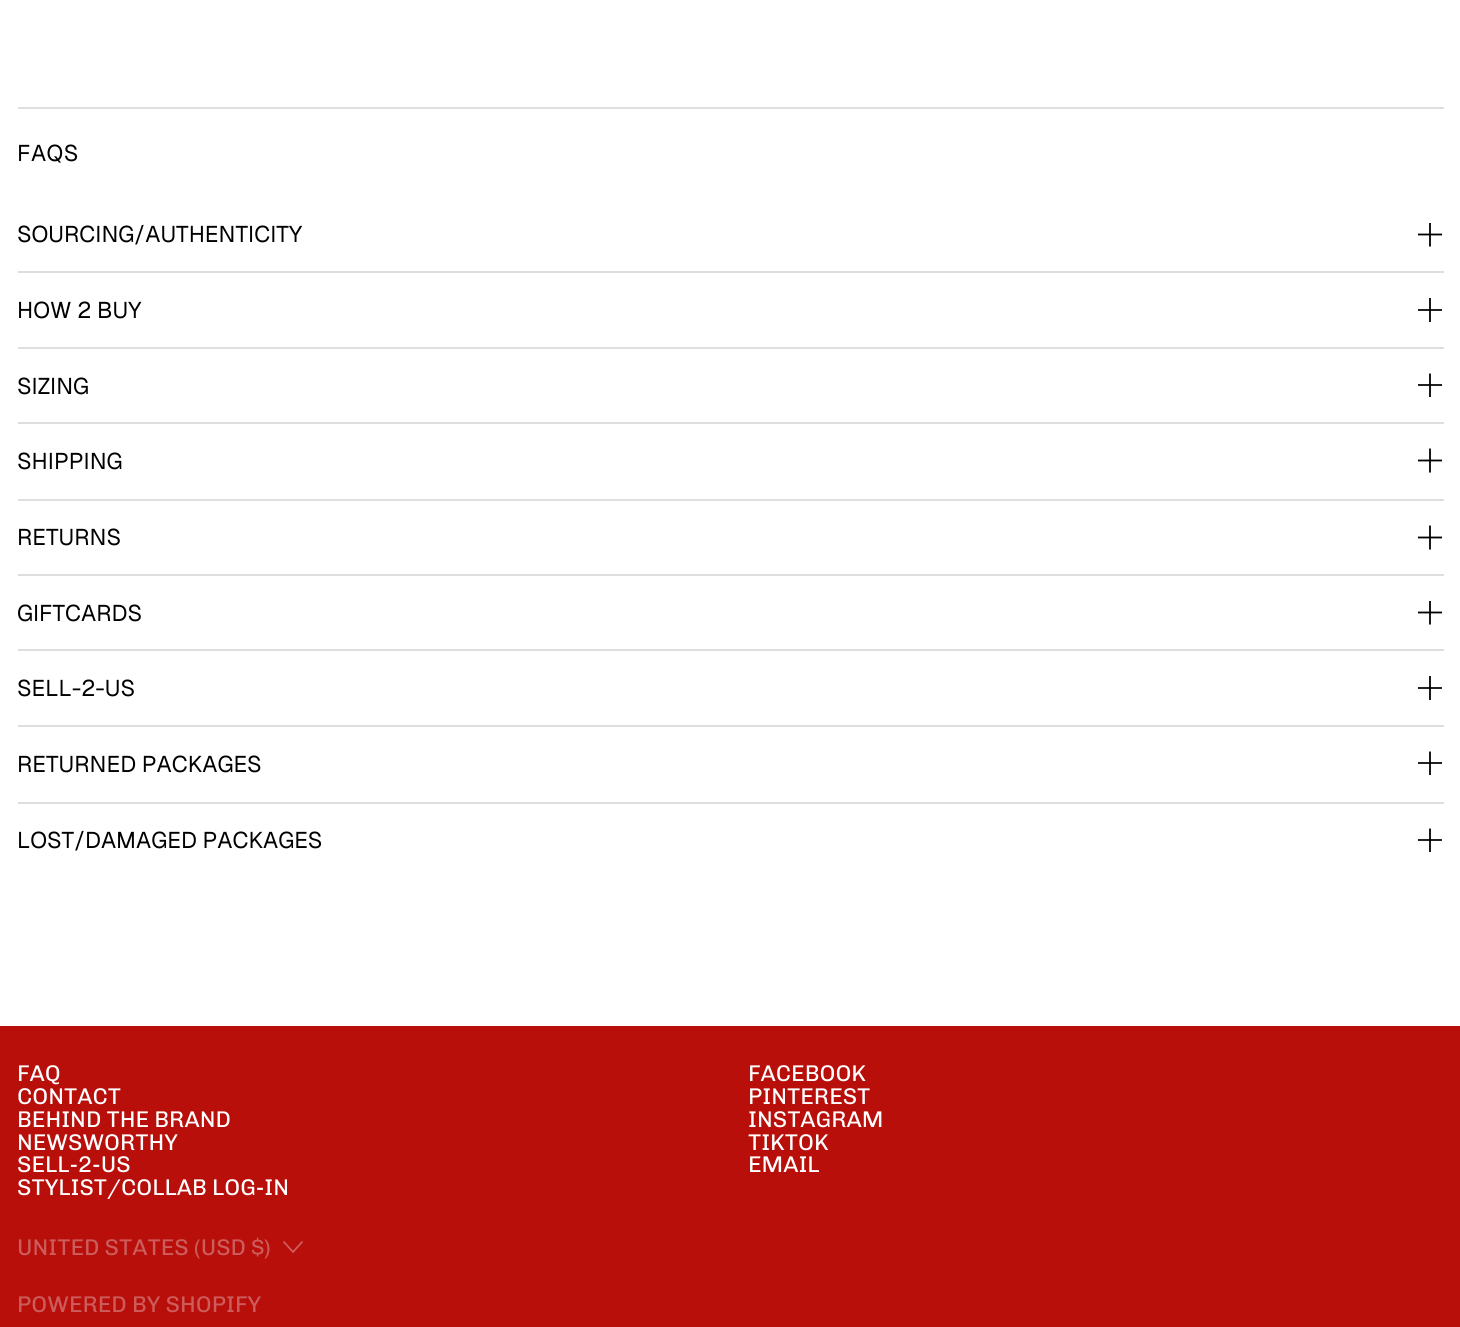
import math
import cairocffi as cairo

surface = cairo.ImageSurface(cairo.FORMAT_RGB24, 1460, 1327)
ctx = cairo.Context(surface)
options = cairo.FontOptions()
options.set_hint_metrics(cairo.HINT_METRICS_OFF)
options.set_hint_style(cairo.HINT_STYLE_NONE)
ctx.set_font_options(options)
ctx.set_miter_limit(4)


def rgb(r, g, b):
    ctx.set_source_rgb(r / 255, g / 255, b / 255)


def face(family, size, italic, bold):
    ctx.select_font_face(family, cairo.FONT_SLANT_ITALIC if italic else cairo.FONT_SLANT_NORMAL, cairo.FONT_WEIGHT_BOLD if bold else cairo.FONT_WEIGHT_NORMAL)
    ctx.set_font_size(size)


def label(x, y, s):
    ctx.move_to(x, y)
    ctx.show_text(s)


def tracked(x, y, s, letter, word):
    ctx.move_to(x, y)
    for ch in s:
        ctx.show_text(ch)
        ctx.rel_move_to(letter + word * (ch == ' '), 0)


def rect(x, y, w, h):
    ctx.rectangle(x, y, w, h)
    ctx.fill()


rgb(255, 255, 255)
ctx.paint()
rgb(222, 222, 222)
rect(18, 107, 1426, 2)
face('Geist', 22.75, 0, 0)
rgb(0, 0, 0)
tracked(17, 161, 'FAQS', 0.5, 0)
rgb(222, 222, 222)
rect(18, 271, 1426, 2)
rgb(0, 0, 0)
label(17, 242, 'SOURCING/AUTHENTICITY')
ctx.new_path()
ctx.move_to(1418, 234.5)
ctx.line_to(1442, 234.5)
ctx.move_to(1430, 223)
ctx.line_to(1430, 246.5)
ctx.set_line_width(1.8)
ctx.set_line_join(cairo.LINE_JOIN_ROUND)
ctx.stroke()
rgb(222, 222, 222)
rect(18, 347, 1426, 2)
rgb(0, 0, 0)
label(17, 318, 'HOW 2 BUY')
ctx.new_path()
ctx.move_to(1418, 310)
ctx.line_to(1442, 310)
ctx.move_to(1430, 298)
ctx.line_to(1430, 322)
ctx.stroke()
rgb(222, 222, 222)
rect(18, 422, 1426, 2)
rgb(0, 0, 0)
label(17, 394, 'SIZING')
ctx.new_path()
ctx.move_to(1418, 385)
ctx.line_to(1442, 385)
ctx.move_to(1430, 373.5)
ctx.line_to(1430, 397)
ctx.stroke()
rgb(222, 222, 222)
rect(18, 499, 1426, 2)
rgb(0, 0, 0)
label(17, 469, 'SHIPPING')
ctx.new_path()
ctx.move_to(1418, 460.5)
ctx.line_to(1442, 460.5)
ctx.move_to(1430, 448.5)
ctx.line_to(1430, 472.5)
ctx.stroke()
rgb(222, 222, 222)
rect(18, 574, 1426, 2)
rgb(0, 0, 0)
label(17, 545, 'RETURNS')
ctx.new_path()
ctx.move_to(1418, 537.5)
ctx.line_to(1442, 537.5)
ctx.move_to(1430, 525.5)
ctx.line_to(1430, 549.5)
ctx.stroke()
rgb(222, 222, 222)
rect(18, 649, 1426, 2)
rgb(0, 0, 0)
label(17, 621, 'GIFTCARDS')
ctx.new_path()
ctx.move_to(1418, 612.5)
ctx.line_to(1442, 612.5)
ctx.move_to(1430, 601)
ctx.line_to(1430, 624.5)
ctx.stroke()
rgb(222, 222, 222)
rect(18, 725, 1426, 2)
rgb(0, 0, 0)
label(17, 696, 'SELL-2-US')
ctx.new_path()
ctx.move_to(1418, 688)
ctx.line_to(1442, 688)
ctx.move_to(1430, 676)
ctx.line_to(1430, 700)
ctx.stroke()
rgb(222, 222, 222)
rect(18, 802, 1426, 2)
rgb(0, 0, 0)
label(17, 772, 'RETURNED PACKAGES')
ctx.new_path()
ctx.move_to(1418, 763)
ctx.line_to(1442, 763)
ctx.move_to(1430, 751.5)
ctx.line_to(1430, 775)
ctx.stroke()
label(17, 848, 'LOST/DAMAGED PACKAGES')
ctx.new_path()
ctx.move_to(1418, 840)
ctx.line_to(1442, 840)
ctx.move_to(1430, 828.5)
ctx.line_to(1430, 852)
ctx.stroke()
rgb(184, 15, 10)
rect(0, 1026, 1460, 301)
face('Chivo', 22.75, 0, 0)
rgb(255, 255, 255)
label(17, 1081, 'FAQ')
label(17, 1104, 'CONTACT')
label(17, 1127, 'BEHIND THE BRAND')
label(17, 1150, 'NEWSWORTHY')
label(17, 1172, 'SELL-2-US')
label(17, 1195, 'STYLIST/COLLAB LOG-IN')
label(748, 1081, 'FACEBOOK')
label(748, 1104, 'PINTEREST')
label(748, 1127, 'INSTAGRAM')
label(748, 1150, 'TIKTOK')
label(748, 1172, 'EMAIL')
rgb(205, 92, 92)
label(17, 1255, 'UNITED STATES (USD $)')
ctx.new_path()
ctx.move_to(283.5, 1241.5)
ctx.line_to(293, 1252)
ctx.line_to(302.5, 1241.5)
ctx.stroke()
label(17, 1312, 'POWERED BY SHOPIFY')
surface.write_to_png('render.png')
